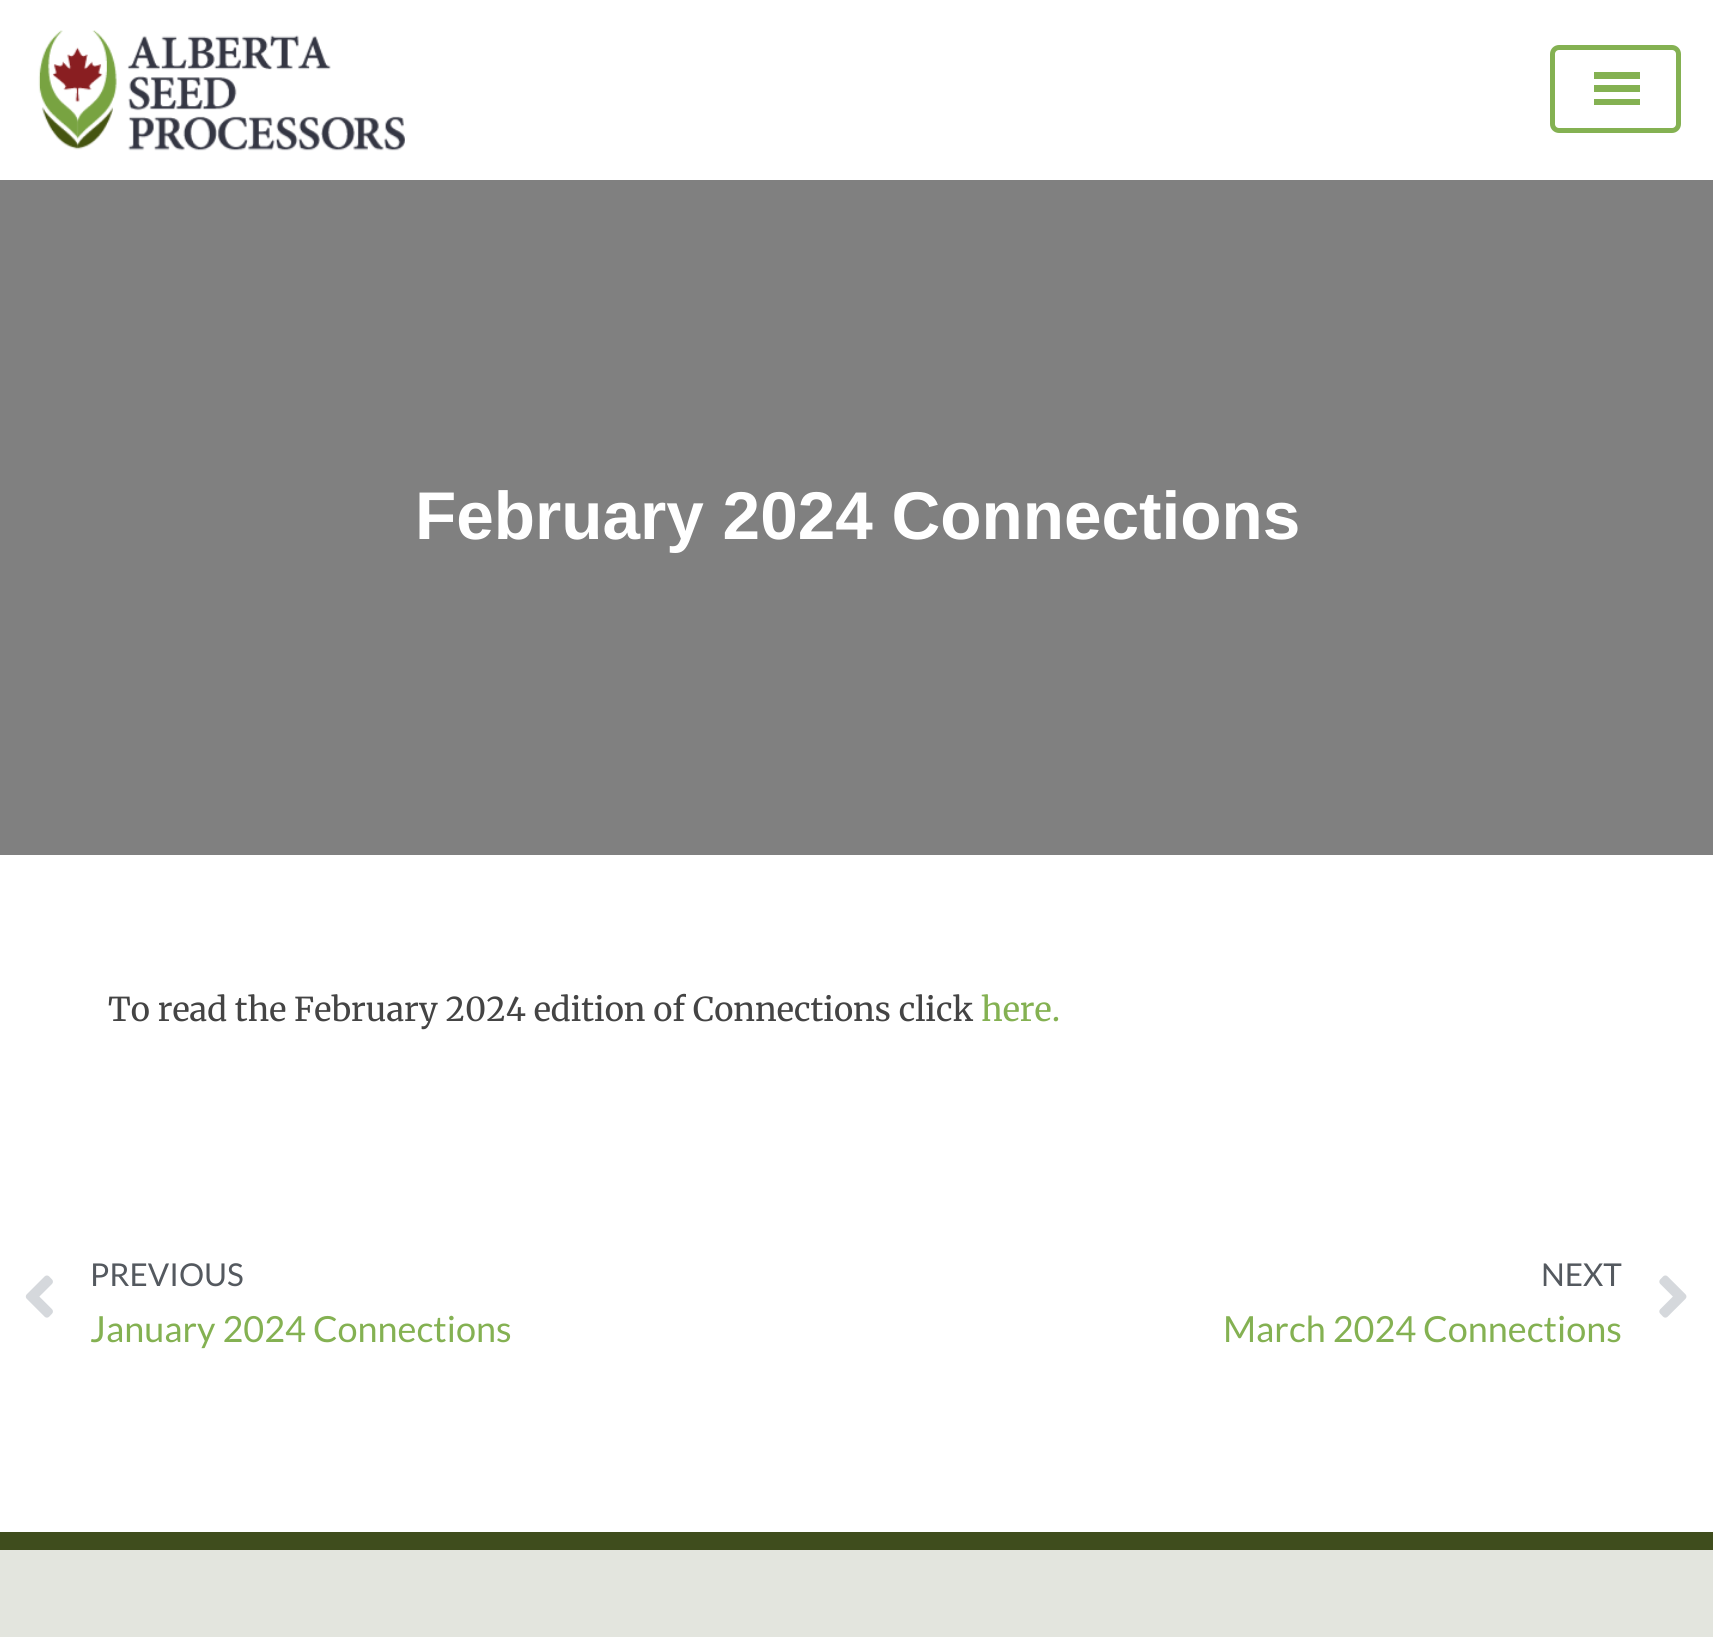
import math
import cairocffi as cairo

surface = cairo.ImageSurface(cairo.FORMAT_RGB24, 1713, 1637)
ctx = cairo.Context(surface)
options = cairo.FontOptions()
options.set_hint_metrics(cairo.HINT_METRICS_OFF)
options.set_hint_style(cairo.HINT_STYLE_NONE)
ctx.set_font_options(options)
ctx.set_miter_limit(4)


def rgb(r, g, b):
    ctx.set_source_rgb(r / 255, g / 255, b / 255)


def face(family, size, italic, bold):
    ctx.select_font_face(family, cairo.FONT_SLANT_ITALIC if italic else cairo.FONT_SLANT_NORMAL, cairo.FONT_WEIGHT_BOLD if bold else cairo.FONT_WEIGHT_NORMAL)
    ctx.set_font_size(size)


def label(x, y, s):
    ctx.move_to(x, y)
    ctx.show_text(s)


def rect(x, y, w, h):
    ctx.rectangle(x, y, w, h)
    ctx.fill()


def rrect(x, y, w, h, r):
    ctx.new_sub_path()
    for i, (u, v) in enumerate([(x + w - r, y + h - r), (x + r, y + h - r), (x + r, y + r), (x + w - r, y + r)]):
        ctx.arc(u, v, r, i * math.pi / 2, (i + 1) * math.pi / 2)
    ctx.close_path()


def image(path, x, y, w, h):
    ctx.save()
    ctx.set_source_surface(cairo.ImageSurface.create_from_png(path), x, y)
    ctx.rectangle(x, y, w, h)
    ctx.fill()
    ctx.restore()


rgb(255, 255, 255)
ctx.paint()
image('image0.png', 38, 30, 367, 121)
rrect(1552.5, 47.5, 126, 83, 6.5)
rgb(132, 177, 82)
ctx.set_line_width(5)
ctx.stroke()
ctx.new_path()
ctx.move_to(1594, 105)
ctx.line_to(1640, 105)
ctx.line_to(1640, 99)
ctx.line_to(1594, 99)
ctx.close_path()
ctx.move_to(1594, 72)
ctx.line_to(1594, 79)
ctx.line_to(1640, 79)
ctx.line_to(1640, 72)
ctx.close_path()
ctx.move_to(1594, 92)
ctx.line_to(1640, 92)
ctx.line_to(1640, 85)
ctx.line_to(1594, 85)
ctx.close_path()
ctx.fill()
rgb(128, 128, 128)
rect(0, 180, 1713, 675)
face('Liberation Sans', 67.5, 0, 1)
rgb(255, 255, 255)
label(415, 539, 'February 2024 Connections')
face('Merriweather', 32.8, 0, 0)
rgb(68, 68, 68)
label(108, 1021, 'To read the February 2024 edition of Connections click')
rgb(132, 177, 82)
label(981, 1021, 'here.')
image('image1.png', 25, 1275, 28, 43)
face('Lato', 31.5, 0, 0)
rgb(84, 89, 95)
label(90, 1286, 'PREVIOUS')
face('Lato', 36, 0, 0)
rgb(132, 177, 82)
label(90, 1342, 'January 2024 Connections')
face('Lato', 31.5, 0, 0)
rgb(84, 89, 95)
label(1541, 1286, 'NEXT')
face('Lato', 36, 0, 0)
rgb(132, 177, 82)
label(1223, 1342, 'March 2024 Connections')
image('image2.png', 1659, 1275, 28, 43)
rgb(227, 229, 222)
rect(0, 1550, 1713, 87)
rgb(63, 77, 29)
rect(0, 1532, 1713, 18)
surface.write_to_png('render.png')
